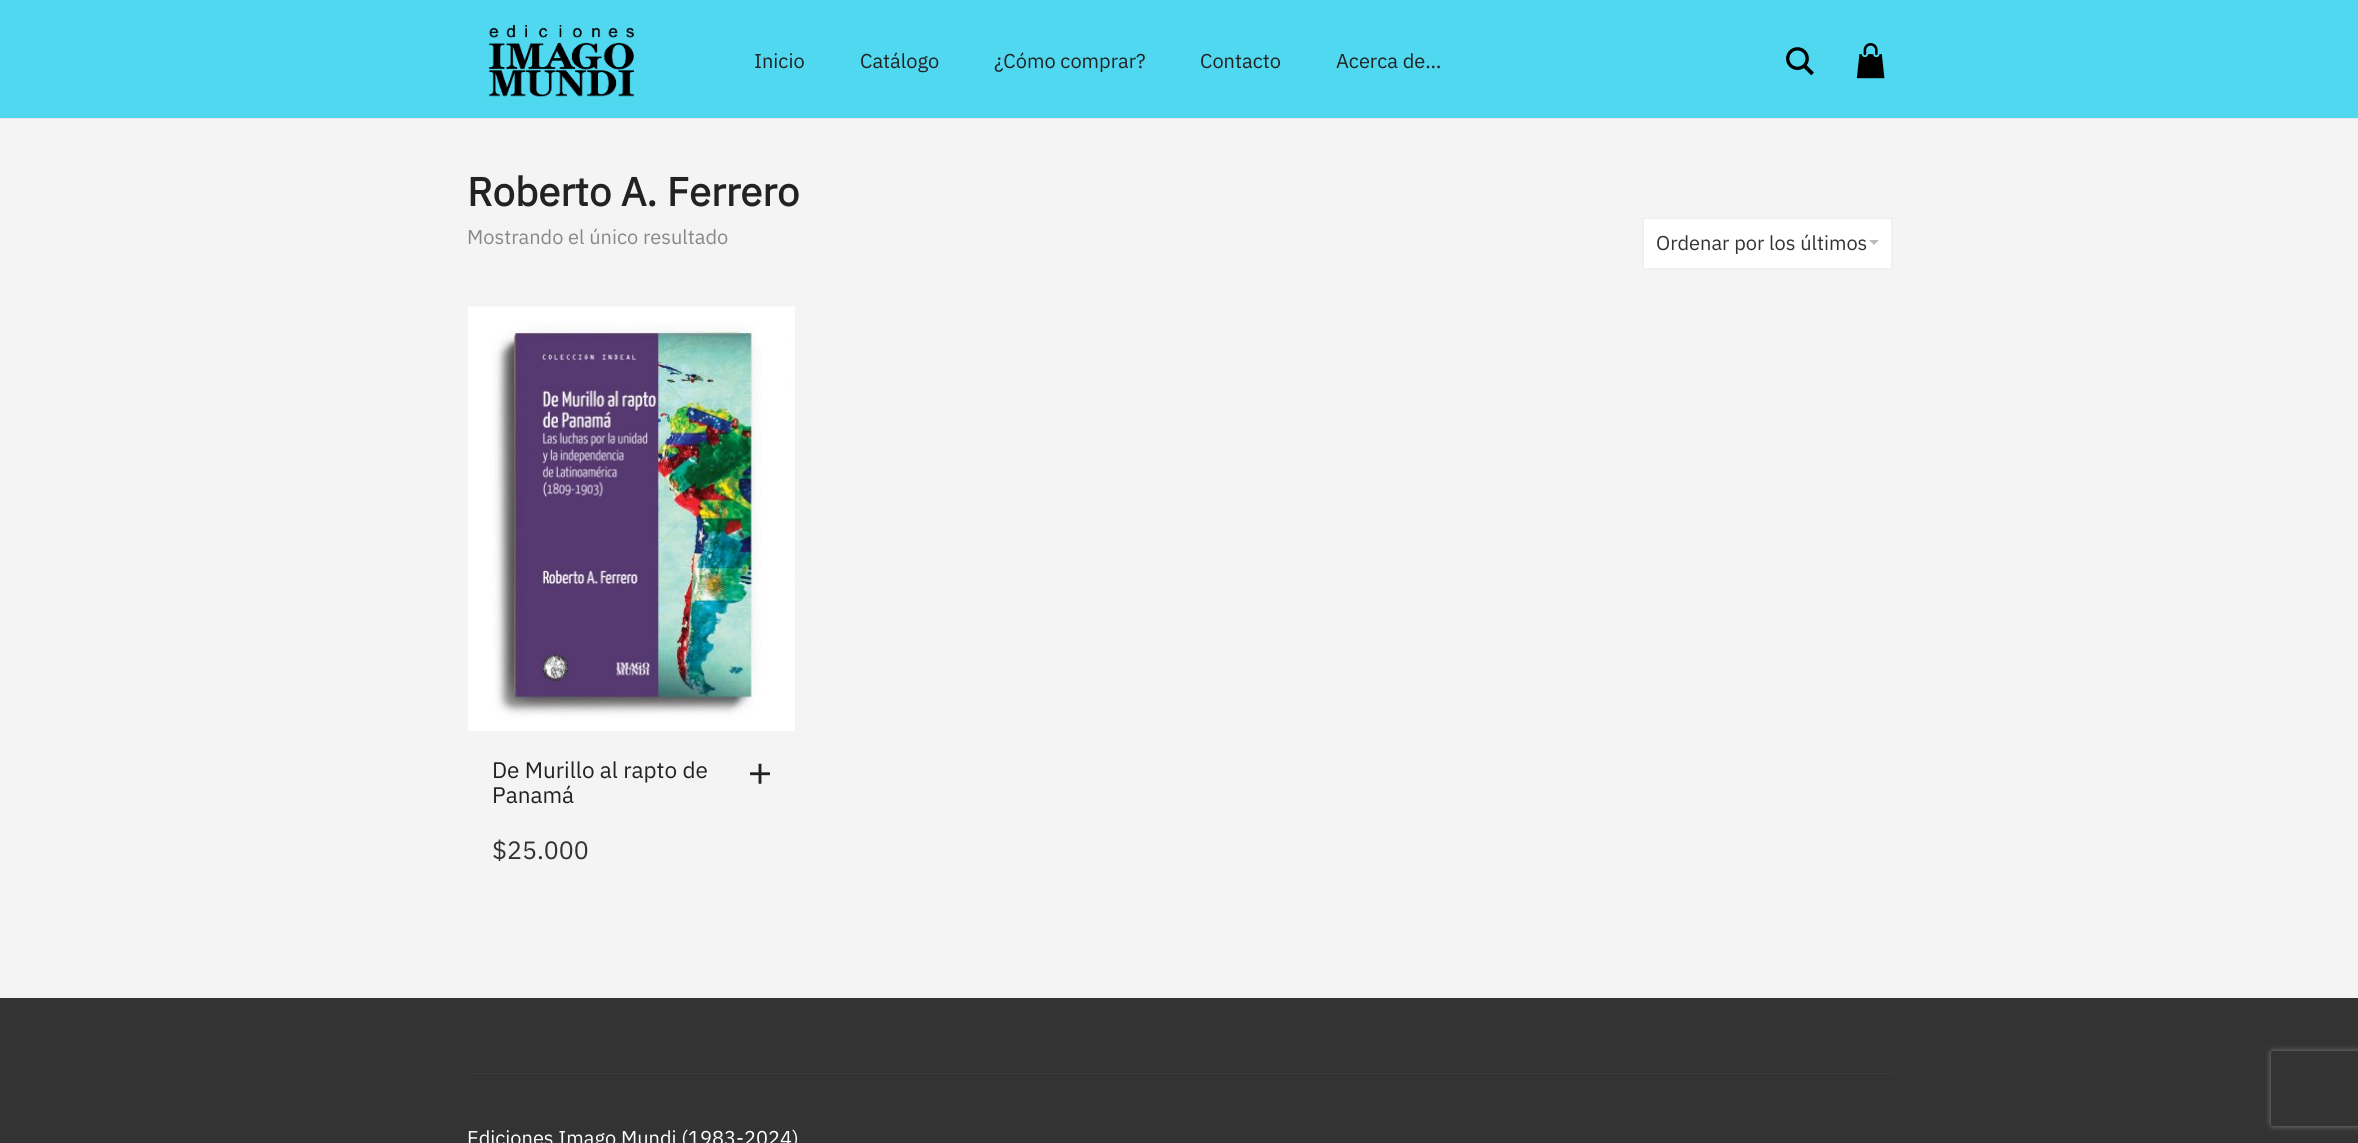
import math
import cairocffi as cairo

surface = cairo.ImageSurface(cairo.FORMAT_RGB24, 2358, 1143)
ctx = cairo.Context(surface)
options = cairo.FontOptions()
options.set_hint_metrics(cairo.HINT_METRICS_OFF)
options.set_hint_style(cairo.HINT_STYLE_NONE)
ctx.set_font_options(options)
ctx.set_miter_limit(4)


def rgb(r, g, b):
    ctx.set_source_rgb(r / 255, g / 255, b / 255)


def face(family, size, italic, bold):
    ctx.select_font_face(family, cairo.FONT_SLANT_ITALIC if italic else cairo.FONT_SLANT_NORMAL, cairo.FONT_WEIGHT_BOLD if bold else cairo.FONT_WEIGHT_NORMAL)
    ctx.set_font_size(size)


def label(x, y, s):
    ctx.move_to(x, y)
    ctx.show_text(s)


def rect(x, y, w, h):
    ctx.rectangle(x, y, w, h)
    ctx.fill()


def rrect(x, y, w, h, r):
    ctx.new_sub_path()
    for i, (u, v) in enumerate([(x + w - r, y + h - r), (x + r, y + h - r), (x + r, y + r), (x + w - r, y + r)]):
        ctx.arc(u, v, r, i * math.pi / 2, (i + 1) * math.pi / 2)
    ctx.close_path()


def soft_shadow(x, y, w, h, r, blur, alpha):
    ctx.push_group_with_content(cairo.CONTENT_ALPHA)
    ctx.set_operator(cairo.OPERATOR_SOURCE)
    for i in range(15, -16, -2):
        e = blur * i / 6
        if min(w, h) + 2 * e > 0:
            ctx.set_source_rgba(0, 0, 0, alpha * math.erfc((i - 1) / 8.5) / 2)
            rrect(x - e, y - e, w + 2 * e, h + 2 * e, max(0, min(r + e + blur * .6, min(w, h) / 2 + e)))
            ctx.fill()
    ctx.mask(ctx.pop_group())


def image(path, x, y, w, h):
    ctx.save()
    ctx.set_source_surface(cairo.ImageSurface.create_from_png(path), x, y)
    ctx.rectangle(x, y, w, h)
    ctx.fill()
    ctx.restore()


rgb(244, 244, 244)
ctx.paint()
rgb(232, 232, 232)
ctx.new_path()
ctx.move_to(0, 118)
ctx.line_to(0, 119)
ctx.line_to(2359, 119)
ctx.line_to(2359, 1)
ctx.line_to(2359, 118)
ctx.close_path()
ctx.fill()
rgb(79, 216, 240)
rect(0, 0, 2358, 118)
image('image0.png', 488, 25, 146, 72)
face('IBM Plex Sans', 20, 0, 0)
rgb(34, 34, 34)
label(754, 68, 'Inicio')
label(860, 68, 'Catálogo')
label(994, 68, '¿Cómo comprar?')
label(1200, 68, 'Contacto')
label(1336, 68, 'Acerca de…')
image('image1.png', 1786, 47, 28, 29)
image('image2.png', 1856, 43, 29, 36)
face('IBM Plex Sans', 40, 0, 1)
label(467, 206, 'Roberto A. Ferrero')
face('IBM Plex Sans', 20, 0, 0)
rgb(136, 136, 136)
label(467, 244, 'Mostrando el único resultado')
rgb(255, 255, 255)
rect(1644, 219, 247, 49)
ctx.rectangle(1643.5, 218.5, 249, 50)
rgb(238, 238, 238)
ctx.set_line_width(1)
ctx.stroke()
rgb(51, 51, 51)
label(1656, 250, 'Ordenar por los últimos')
rgb(187, 187, 187)
ctx.new_path()
ctx.move_to(1869, 240)
ctx.line_to(1879, 240)
ctx.line_to(1874, 245)
ctx.close_path()
ctx.fill()
image('image3.png', 468, 306, 327, 425)
face('IBM Plex Sans', 22.5, 0, 0)
rgb(34, 34, 34)
label(492, 778, 'De Murillo al rapto de')
label(492, 803, 'Panamá')
image('image4.png', 750, 763, 20, 21)
face('IBM Plex Sans', 25, 0, 0)
rgb(51, 51, 51)
label(492, 859, '$25.000')
rect(0, 998, 2358, 145)
rgb(58, 58, 58)
rect(468, 1073, 1425, 1)
face('IBM Plex Sans', 20, 0, 0)
rgb(255, 255, 255)
label(467, 1145, 'Ediciones Imago Mundi (1983-2024)')
ctx.save()
ctx.set_fill_rule(cairo.FILL_RULE_EVEN_ODD)
ctx.new_path()
ctx.move_to(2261, 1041)
ctx.line_to(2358, 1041)
ctx.line_to(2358, 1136)
ctx.line_to(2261, 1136)
ctx.close_path()
ctx.move_to(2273.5, 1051)
ctx.line_to(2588.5, 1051)
ctx.curve_to(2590, 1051, 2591, 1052, 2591, 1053.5)
ctx.line_to(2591, 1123.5)
ctx.curve_to(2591, 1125, 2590, 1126, 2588.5, 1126)
ctx.line_to(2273.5, 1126)
ctx.curve_to(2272, 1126, 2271, 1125, 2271, 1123.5)
ctx.line_to(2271, 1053.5)
ctx.curve_to(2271, 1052, 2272, 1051, 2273.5, 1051)
ctx.close_path()
ctx.clip()
rgb(128, 128, 128)
soft_shadow(2271, 1051, 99, 75, 2.5, 3, 1)
ctx.restore()
surface.write_to_png('render.png')
